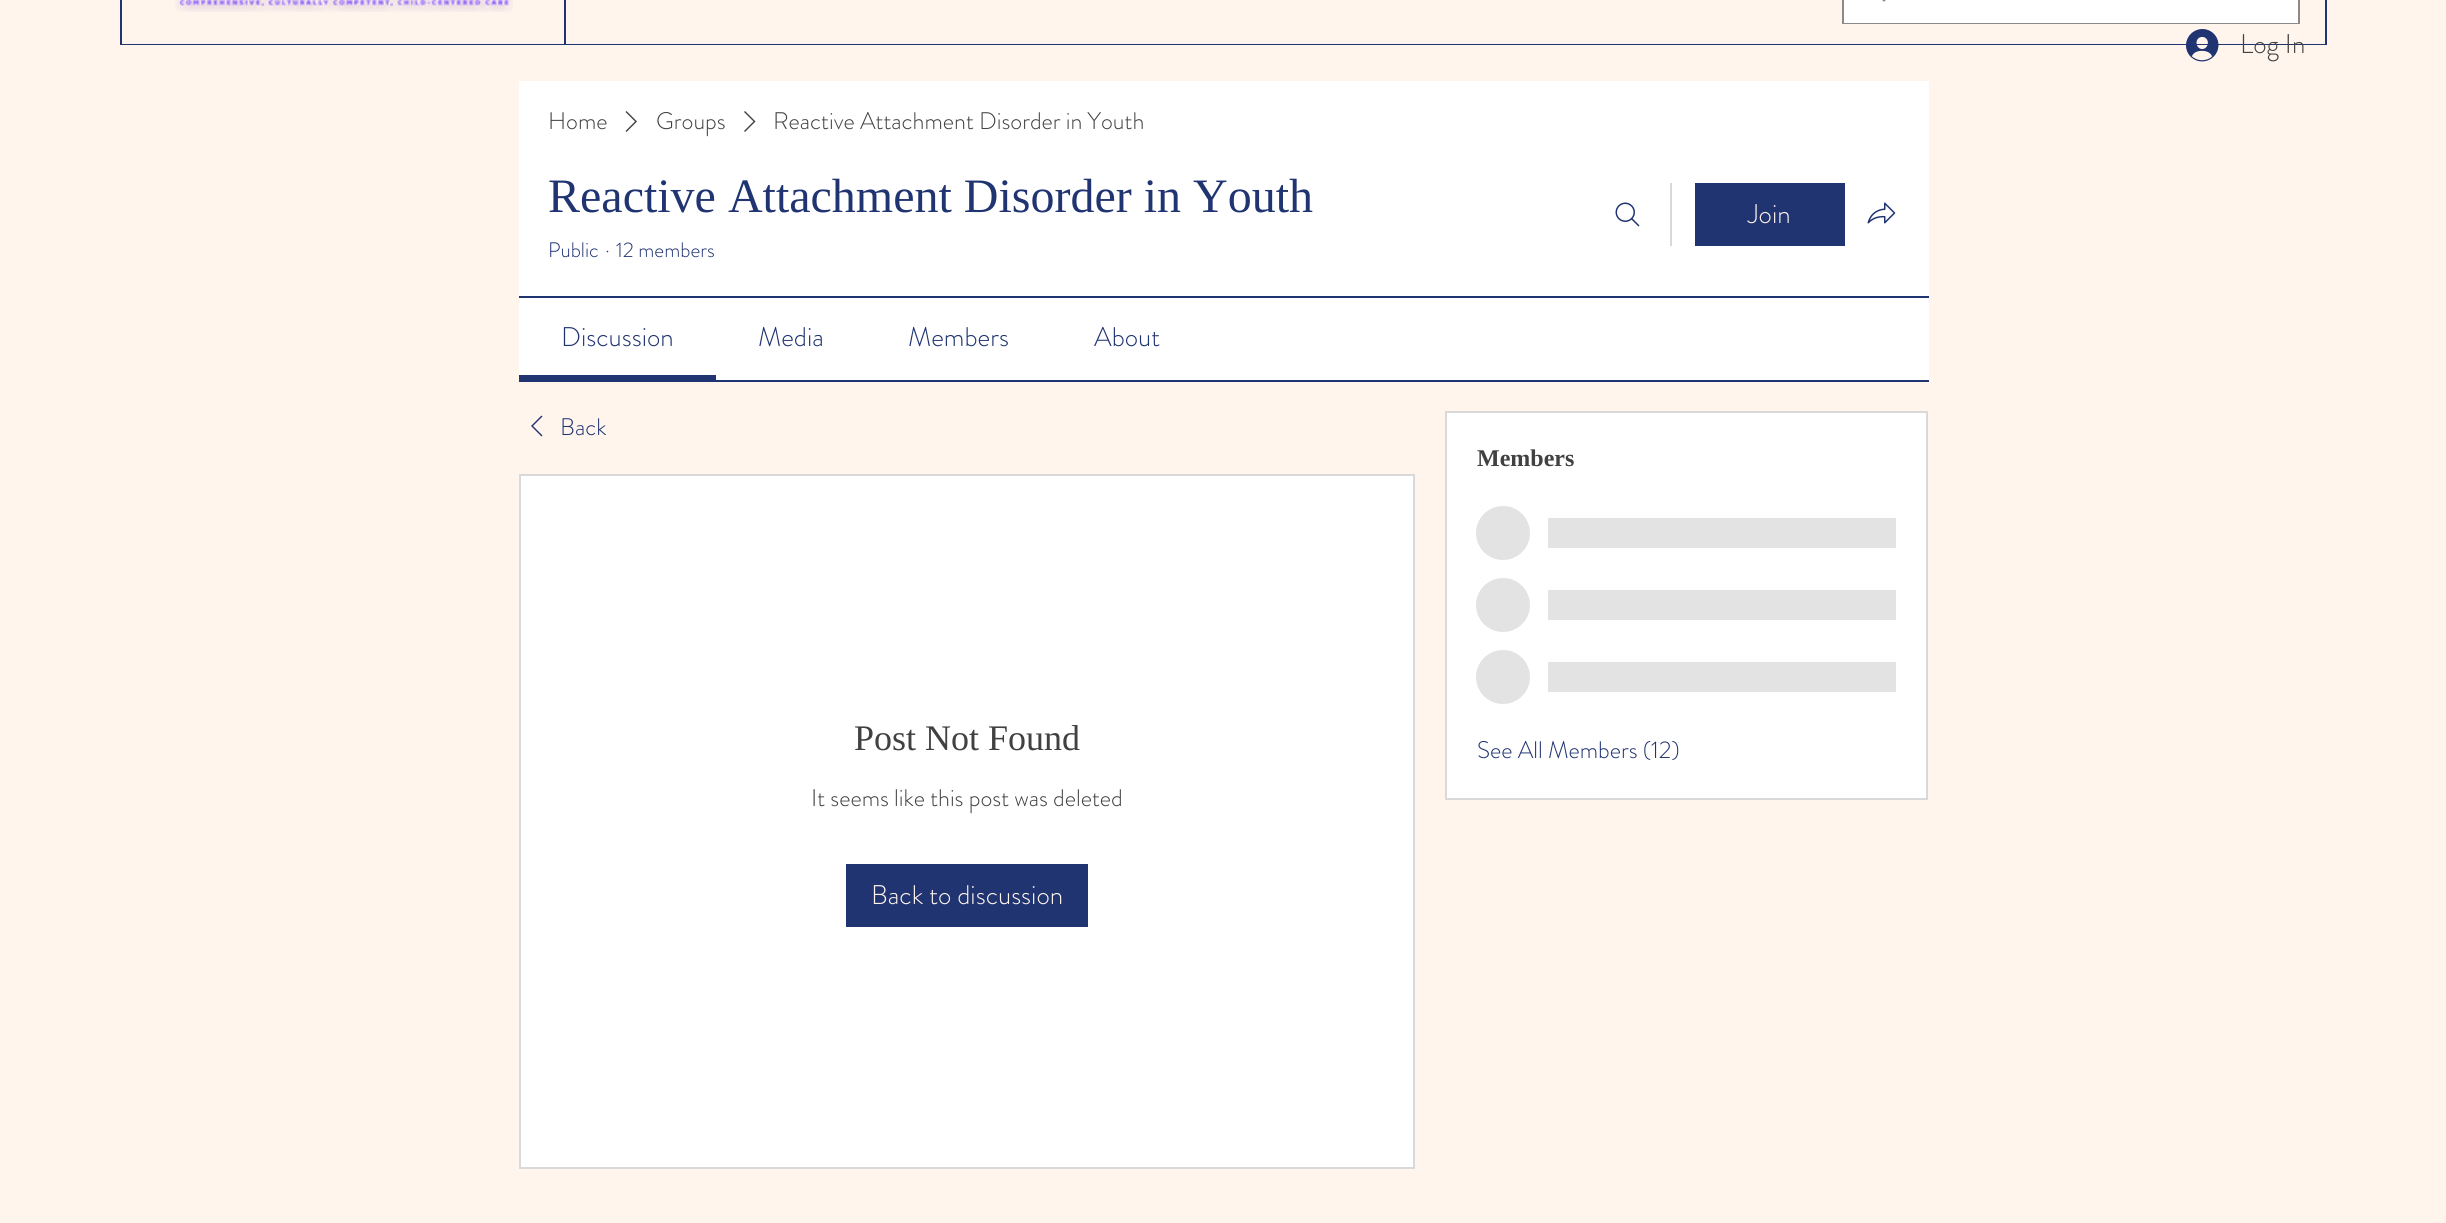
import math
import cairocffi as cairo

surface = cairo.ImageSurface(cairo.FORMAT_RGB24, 2446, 1223)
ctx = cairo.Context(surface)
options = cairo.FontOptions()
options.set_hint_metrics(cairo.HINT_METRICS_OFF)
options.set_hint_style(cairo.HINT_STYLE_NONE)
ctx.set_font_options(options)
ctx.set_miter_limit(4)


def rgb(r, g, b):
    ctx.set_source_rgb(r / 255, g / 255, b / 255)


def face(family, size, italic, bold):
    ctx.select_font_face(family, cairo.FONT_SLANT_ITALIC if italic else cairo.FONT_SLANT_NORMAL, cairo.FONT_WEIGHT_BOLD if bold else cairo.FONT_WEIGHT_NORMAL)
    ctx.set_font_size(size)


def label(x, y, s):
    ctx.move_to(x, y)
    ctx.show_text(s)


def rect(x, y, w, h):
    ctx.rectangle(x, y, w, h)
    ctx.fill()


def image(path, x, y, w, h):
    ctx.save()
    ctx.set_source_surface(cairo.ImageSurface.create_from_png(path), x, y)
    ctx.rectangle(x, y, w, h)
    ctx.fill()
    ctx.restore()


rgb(255, 245, 237)
ctx.paint()
rgb(33, 52, 114)
rect(120, 0, 2207, 45)
rgb(255, 245, 237)
rect(122, 0, 442, 44)
image('image0.png', 175, 0, 338, 12)
rect(566, 0, 1759, 44)
ctx.rectangle(1843, -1, 456, 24)
rgb(141, 137, 134)
ctx.stroke()
rgb(255, 255, 255)
rect(1844, 0, 454, 23)
image('image1.png', 1882, 0, 4, 2)
image('image2.png', 2186, 29, 33, 33)
face('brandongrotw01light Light', 27, 0, 0)
rgb(65, 65, 65)
label(2240, 53, 'Log In')
rgb(255, 255, 255)
rect(519, 81, 1410, 299)
face('brandongrotw01light Light', 24, 0, 0)
rgb(65, 65, 65)
label(548, 129, 'Home')
ctx.set_fill_rule(cairo.FILL_RULE_EVEN_ODD)
ctx.new_path()
ctx.move_to(626.5, 111)
ctx.line_to(637, 121.5)
ctx.line_to(626.5, 132)
ctx.line_to(625.5, 131)
ctx.line_to(635, 121.5)
ctx.line_to(625.5, 112)
ctx.close_path()
ctx.fill()
label(656, 129, 'Groups')
ctx.new_path()
ctx.move_to(745, 111)
ctx.line_to(755.5, 121.5)
ctx.line_to(745, 132)
ctx.line_to(744, 131)
ctx.line_to(753.5, 121.5)
ctx.line_to(744, 112)
ctx.close_path()
ctx.fill()
label(773, 129, 'Reactive Attachment Disorder in Youth')
face('Liberation Serif', 48, 0, 0)
rgb(33, 52, 114)
label(548, 212, 'Reactive Attachment Disorder in Youth')
face('brandongrotw01light Light', 21, 0, 0)
label(548, 257, 'Public')
label(605, 257, '·')
label(616, 257, '12 members')
image('image3.png', 1615, 202, 25, 25)
rgb(217, 217, 217)
rect(1670, 183, 2, 63)
rgb(33, 52, 114)
rect(1695, 183, 150, 63)
face('brandongrotw01light Light', 27, 0, 0)
rgb(255, 245, 237)
label(1748, 223, 'Join')
image('image4.png', 1867, 202, 29, 22)
rgb(33, 52, 114)
rect(519, 296, 1410, 2)
rect(519, 380, 1410, 2)
rect(519, 375, 197, 5)
label(561, 346, 'Discussion')
label(758, 346, 'Media')
label(908, 346, 'Members')
label(1094, 346, 'About')
ctx.new_path()
ctx.move_to(541.5, 415.5)
ctx.line_to(542.5, 416.5)
ctx.line_to(533, 426)
ctx.line_to(542.5, 435.5)
ctx.line_to(541.5, 436.5)
ctx.line_to(531, 426)
ctx.close_path()
ctx.fill()
face('brandongrotw01light Light', 24, 0, 0)
label(560, 435, 'Back')
rgb(255, 255, 255)
ctx.rectangle(520, 475, 894, 693)
ctx.fill_preserve()
rgb(217, 217, 217)
ctx.stroke()
face('Liberation Serif', 36, 0, 0)
rgb(65, 65, 65)
label(854, 750, 'Post Not Found')
face('brandongrotw01light Light', 24, 0, 0)
label(811, 806, 'It seems like this post was deleted')
rgb(33, 52, 114)
rect(846, 864, 242, 63)
face('brandongrotw01light Light', 27, 0, 0)
rgb(255, 245, 237)
label(871, 904, 'Back to discussion')
rgb(255, 255, 255)
ctx.rectangle(1446, 412, 481, 387)
ctx.fill_preserve()
rgb(217, 217, 217)
ctx.stroke()
face('Liberation Serif', 24, 0, 1)
rgb(65, 65, 65)
label(1477, 466, 'Members')
rgb(227, 227, 227)
ctx.new_path()
ctx.arc(1503, 533, 27, 0, 2 * math.pi)
ctx.fill()
rect(1548, 518, 348, 30)
ctx.arc(1503, 605, 27, 0, 2 * math.pi)
ctx.fill()
rect(1548, 590, 348, 30)
ctx.arc(1503, 677, 27, 0, 2 * math.pi)
ctx.fill()
rect(1548, 662, 348, 30)
face('brandongrotw01light Light', 24, 0, 0)
rgb(33, 52, 114)
label(1477, 758, 'See All Members (12)')
surface.write_to_png('render.png')
